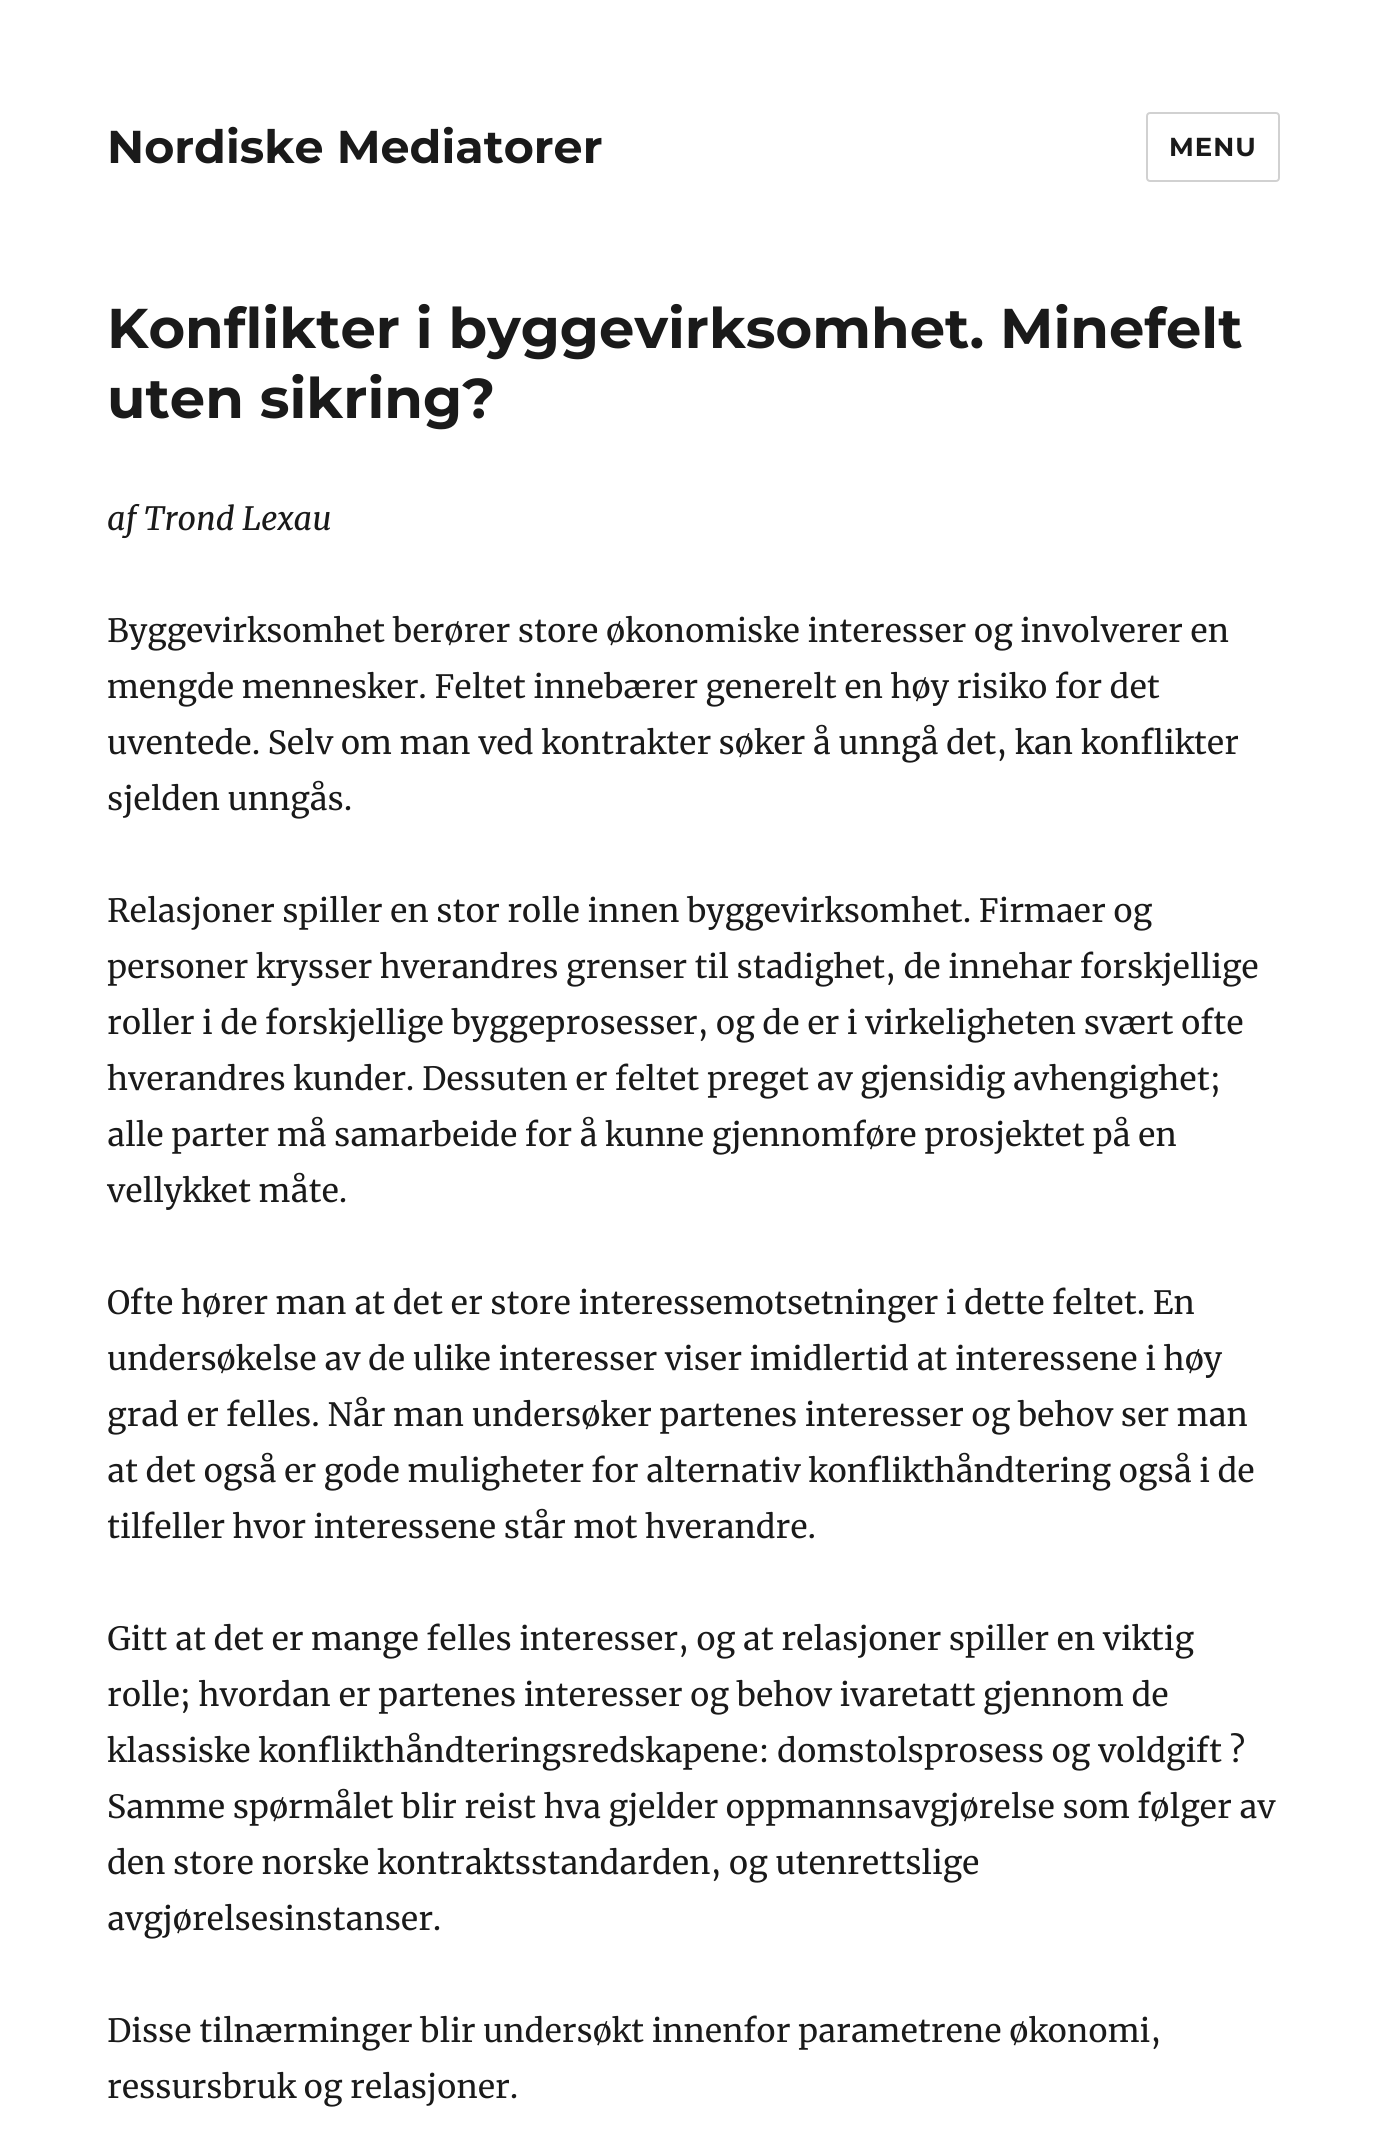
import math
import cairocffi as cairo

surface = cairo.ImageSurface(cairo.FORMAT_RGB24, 1385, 2154)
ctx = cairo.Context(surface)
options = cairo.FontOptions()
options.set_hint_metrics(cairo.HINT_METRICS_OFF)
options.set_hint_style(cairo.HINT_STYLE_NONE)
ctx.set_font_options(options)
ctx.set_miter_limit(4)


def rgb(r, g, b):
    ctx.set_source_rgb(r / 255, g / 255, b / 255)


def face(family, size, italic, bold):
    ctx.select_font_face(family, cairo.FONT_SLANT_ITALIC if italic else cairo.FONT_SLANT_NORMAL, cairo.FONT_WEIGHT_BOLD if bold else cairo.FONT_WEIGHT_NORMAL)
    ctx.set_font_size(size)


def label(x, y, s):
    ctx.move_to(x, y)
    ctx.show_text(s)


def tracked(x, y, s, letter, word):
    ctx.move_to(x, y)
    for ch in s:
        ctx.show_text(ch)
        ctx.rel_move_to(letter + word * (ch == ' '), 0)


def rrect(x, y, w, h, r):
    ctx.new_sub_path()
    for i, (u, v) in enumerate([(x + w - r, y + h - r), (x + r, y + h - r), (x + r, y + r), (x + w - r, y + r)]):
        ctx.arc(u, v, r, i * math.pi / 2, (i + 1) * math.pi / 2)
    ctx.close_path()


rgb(255, 255, 255)
ctx.paint()
face('Montserrat Thin', 46, 0, 0)
rgb(26, 26, 26)
label(107, 163, 'Nordiske Mediatorer')
rrect(1147, 113, 132, 68, 3)
rgb(209, 209, 209)
ctx.stroke()
face('Montserrat Thin', 26, 0, 0)
rgb(26, 26, 26)
tracked(1169, 156, 'MENU', 1, 0)
face('Montserrat Thin', 56, 0, 0)
label(107, 348, 'Konflikter i byggevirksomhet. Minefelt')
label(107, 418, 'uten sikring?')
face('Merriweather', 32, 1, 0)
label(107, 530, 'af Trond Lexau')
face('Merriweather', 32, 0, 0)
label(107, 642, 'Byggevirksomhet berører store økonomiske interesser og involverer en')
label(107, 698, 'mengde mennesker. Feltet innebærer generelt en høy risiko for det')
label(107, 754, 'uventede. Selv om man ved kontrakter søker å unngå det, kan konflikter')
label(107, 810, 'sjelden unngås.')
label(107, 922, 'Relasjoner spiller en stor rolle innen byggevirksomhet. Firmaer og')
label(107, 978, 'personer krysser hverandres grenser til stadighet, de innehar forskjellige')
label(107, 1034, 'roller i de forskjellige byggeprosesser, og de er i virkeligheten svært ofte')
label(107, 1090, 'hverandres kunder. Dessuten er feltet preget av gjensidig avhengighet;')
label(107, 1146, 'alle parter må samarbeide for å kunne gjennomføre prosjektet på en')
label(107, 1202, 'vellykket måte.')
label(107, 1314, 'Ofte hører man at det er store interessemotsetninger i dette feltet. En')
label(107, 1370, 'undersøkelse av de ulike interesser viser imidlertid at interessene i høy')
label(107, 1426, 'grad er felles. Når man undersøker partenes interesser og behov ser man')
label(107, 1482, 'at det også er gode muligheter for alternativ konflikthåndtering også i de')
label(107, 1538, 'tilfeller hvor interessene står mot hverandre.')
label(107, 1650, 'Gitt at det er mange felles interesser, og at relasjoner spiller en viktig')
label(107, 1706, 'rolle; hvordan er partenes interesser og behov ivaretatt gjennom de')
label(107, 1762, 'klassiske konflikthåndteringsredskapene: domstolsprosess og voldgift ?')
label(107, 1818, 'Samme spørmålet blir reist hva gjelder oppmannsavgjørelse som følger av')
label(107, 1874, 'den store norske kontraktsstandarden, og utenrettslige')
label(107, 1930, 'avgjørelsesinstanser.')
label(107, 2042, 'Disse tilnærminger blir undersøkt innenfor parametrene økonomi,')
label(107, 2098, 'ressursbruk og relasjoner.')
surface.write_to_png('render.png')
